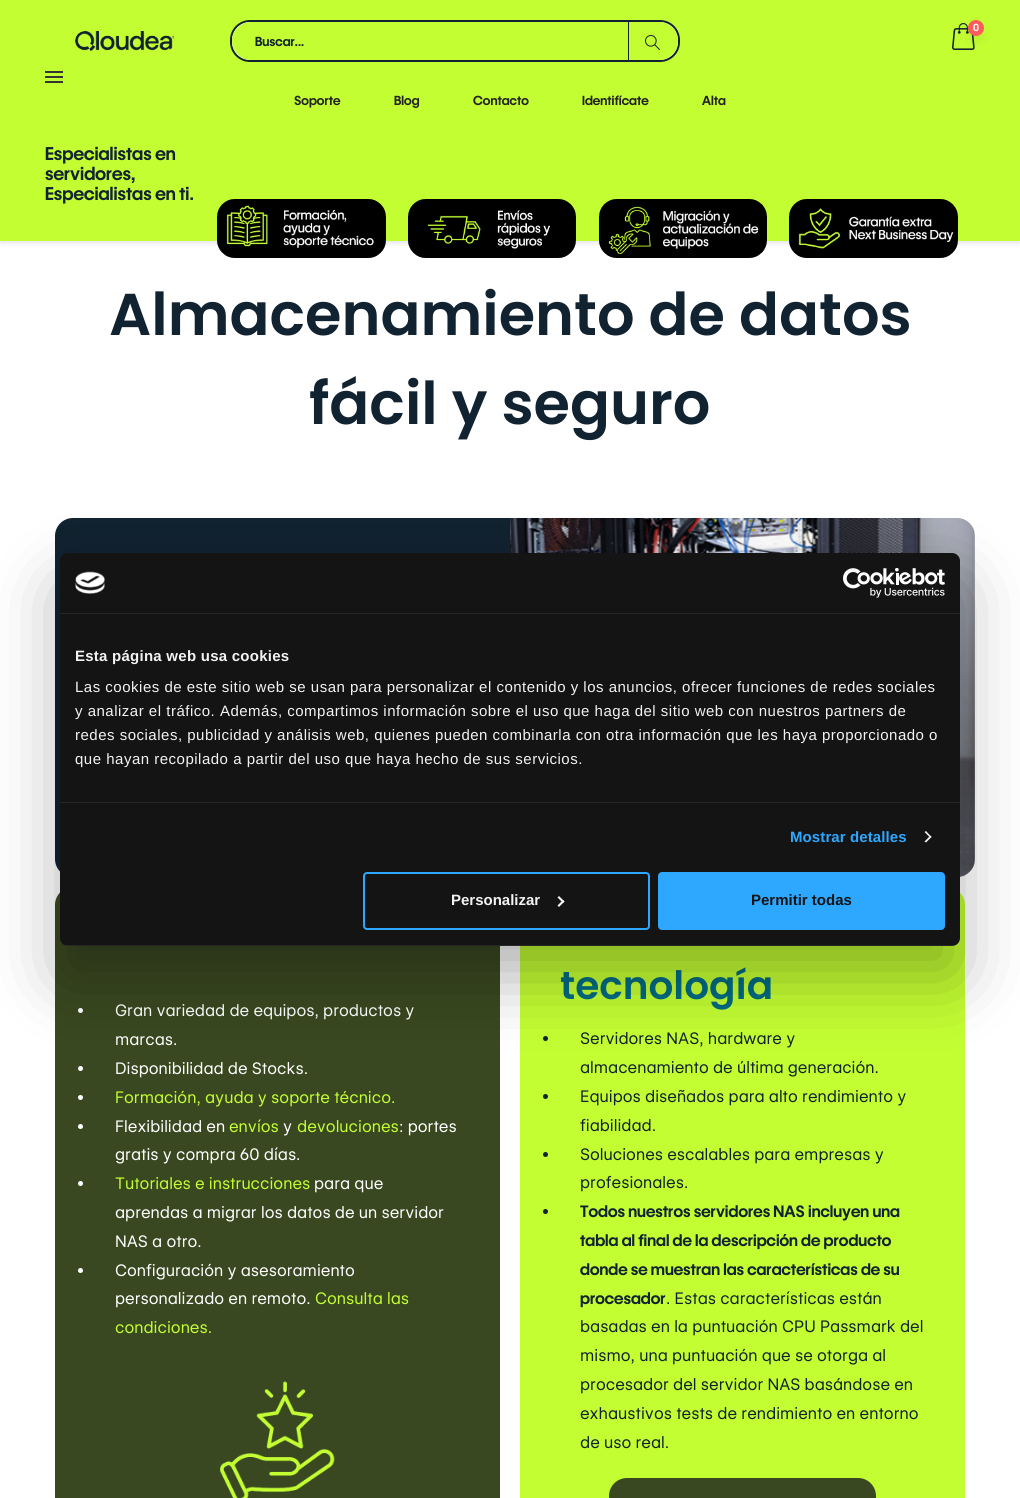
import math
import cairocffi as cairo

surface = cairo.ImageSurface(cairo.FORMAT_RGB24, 1020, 1498)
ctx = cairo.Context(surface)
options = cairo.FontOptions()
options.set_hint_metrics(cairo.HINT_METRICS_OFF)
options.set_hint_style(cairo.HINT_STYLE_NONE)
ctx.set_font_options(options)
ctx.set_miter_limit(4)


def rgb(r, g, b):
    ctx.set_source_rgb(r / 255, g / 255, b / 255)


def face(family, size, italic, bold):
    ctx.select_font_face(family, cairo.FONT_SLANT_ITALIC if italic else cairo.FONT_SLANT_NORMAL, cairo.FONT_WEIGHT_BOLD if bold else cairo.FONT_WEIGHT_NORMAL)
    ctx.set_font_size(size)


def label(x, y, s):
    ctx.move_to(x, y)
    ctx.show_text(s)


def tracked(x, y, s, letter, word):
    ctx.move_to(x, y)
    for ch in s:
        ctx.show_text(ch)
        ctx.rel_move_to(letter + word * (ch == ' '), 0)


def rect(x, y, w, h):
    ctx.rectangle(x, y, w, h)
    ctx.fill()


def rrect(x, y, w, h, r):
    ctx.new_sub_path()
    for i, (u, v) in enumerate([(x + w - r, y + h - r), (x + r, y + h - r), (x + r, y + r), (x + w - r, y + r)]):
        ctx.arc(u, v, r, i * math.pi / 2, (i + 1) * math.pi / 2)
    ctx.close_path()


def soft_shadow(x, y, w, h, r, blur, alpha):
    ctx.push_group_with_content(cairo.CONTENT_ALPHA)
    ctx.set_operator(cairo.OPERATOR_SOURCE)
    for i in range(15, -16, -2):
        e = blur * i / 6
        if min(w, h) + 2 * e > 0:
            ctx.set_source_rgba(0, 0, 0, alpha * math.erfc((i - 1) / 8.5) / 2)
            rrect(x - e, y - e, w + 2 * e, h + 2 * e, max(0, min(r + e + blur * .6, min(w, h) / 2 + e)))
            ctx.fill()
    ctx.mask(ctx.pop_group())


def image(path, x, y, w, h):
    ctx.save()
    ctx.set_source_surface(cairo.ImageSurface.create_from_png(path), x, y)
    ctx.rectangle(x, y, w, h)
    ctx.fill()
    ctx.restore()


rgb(255, 255, 255)
ctx.paint()
rgb(0, 0, 0)
soft_shadow(0, 2, 1020, 241, 0, 2.5, 0.11)
rgb(195, 254, 51)
rect(0, 0, 1020, 241)
image('image0.png', 75, 31, 100, 20)
image('image1.png', 952, 23, 23, 27)
rgb(0, 0, 0)
soft_shadow(968, 27, 16, 16, 8, 4, 0.05)
rgb(255, 91, 91)
ctx.arc(976, 28, 8, 0, 2 * math.pi)
ctx.fill()
face('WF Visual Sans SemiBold', 10, 0, 0)
rgb(255, 255, 255)
label(973, 31, '0')
rrect(231, 21, 448, 40, 19)
ctx.fill_preserve()
rgb(17, 34, 48)
ctx.stroke()
rgb(195, 254, 51)
ctx.new_path()
ctx.move_to(251, 22)
ctx.line_to(628, 22)
ctx.line_to(628, 60)
ctx.line_to(251, 60)
ctx.curve_to(240.5, 60, 232, 51.5, 232, 41)
ctx.curve_to(232, 30.5, 240.5, 22, 251, 22)
ctx.close_path()
ctx.fill()
face('WF Visual Sans SemiBold', 12.75, 0, 0)
rgb(17, 34, 48)
label(255, 46, 'Buscar...')
rgb(195, 254, 51)
ctx.new_path()
ctx.move_to(628, 22)
ctx.line_to(659, 22)
ctx.curve_to(669.5, 22, 678, 30.5, 678, 41)
ctx.curve_to(678, 51.5, 669.5, 60, 659, 60)
ctx.line_to(628, 60)
ctx.close_path()
ctx.fill()
rgb(17, 34, 48)
rect(628, 22, 1, 38)
image('image2.png', 645, 35, 15, 15)
rgb(51, 51, 51)
rect(45, 71, 18, 2)
rect(45, 76, 18, 2)
rect(45, 81, 18, 2)
rgb(35, 35, 35)
label(294, 105, 'Soporte')
label(394, 105, 'Blog')
label(473, 105, 'Contacto')
label(582, 105, 'Identifícate')
label(702, 105, 'Alta')
face('WF Visual Sans SemiBold', 18, 0, 0)
rgb(17, 34, 48)
label(45, 160, 'Especialistas en')
label(45, 180, 'servidores,')
label(45, 200, 'Especialistas en ti.')
image('image3.png', 217, 199, 169, 59)
image('image4.png', 408, 199, 168, 59)
image('image5.png', 599, 199, 168, 59)
image('image6.png', 789, 199, 169, 59)
face('Poppins SemiBold', 59, 0, 0)
label(109, 335, 'Almacenamiento de datos')
label(309, 424, 'fácil y seguro')
ctx.new_path()
ctx.move_to(73, 518)
ctx.line_to(510, 518)
ctx.line_to(510, 877)
ctx.line_to(73, 877)
ctx.curve_to(63, 877, 55, 869, 55, 859)
ctx.line_to(55, 536)
ctx.curve_to(55, 526, 63, 518, 73, 518)
ctx.close_path()
ctx.fill()
image('image7.png', 510, 518, 465, 359)
rgb(57, 72, 32)
rrect(55, 887, 445, 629, 18)
ctx.fill()
rgb(255, 255, 255)
ctx.arc(80.5, 1010.5, 2.5, 0, 2 * math.pi)
ctx.fill()
face('WF Visual Sans', 16, 0, 0)
label(115, 1016, 'Gran variedad de equipos, productos y')
label(115, 1045, 'marcas.')
ctx.new_path()
ctx.arc(80.5, 1068.5, 2.5, 0, 2 * math.pi)
ctx.fill()
label(115, 1074, 'Disponibilidad de Stocks.')
ctx.new_path()
ctx.arc(80.5, 1097.5, 2.5, 0, 2 * math.pi)
ctx.fill()
rgb(195, 254, 51)
label(115, 1103, 'Formación, ayuda y soporte técnico.')
rgb(255, 255, 255)
ctx.new_path()
ctx.arc(80.5, 1126.5, 2.5, 0, 2 * math.pi)
ctx.fill()
label(115, 1132, 'Flexibilidad en')
rgb(195, 254, 51)
label(229, 1132, 'envíos')
rgb(255, 255, 255)
label(283, 1132, 'y')
rgb(195, 254, 51)
label(297, 1132, 'devoluciones')
rgb(255, 255, 255)
label(399, 1132, ': portes')
label(115, 1160, 'gratis y compra 60 días.')
ctx.new_path()
ctx.arc(80.5, 1183.5, 2.5, 0, 2 * math.pi)
ctx.fill()
rgb(195, 254, 51)
label(115, 1189, 'Tutoriales e instrucciones')
rgb(255, 255, 255)
label(314, 1189, 'para que')
label(115, 1218, 'aprendas a migrar los datos de un servidor')
label(115, 1247, 'NAS a otro.')
ctx.new_path()
ctx.arc(80.5, 1270.5, 2.5, 0, 2 * math.pi)
ctx.fill()
label(115, 1276, 'Configuración y asesoramiento')
label(115, 1304, 'personalizado en remoto.')
rgb(195, 254, 51)
label(315, 1304, 'Consulta las')
label(115, 1333, 'condiciones.')
image('image8.png', 220, 1381, 115, 117)
rrect(520, 887, 445, 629, 18)
ctx.fill()
face('Poppins SemiBold', 39, 0, 0)
rgb(0, 107, 130)
label(560, 999, 'tecnología')
rgb(17, 34, 48)
ctx.new_path()
ctx.arc(545.5, 1038.5, 2.5, 0, 2 * math.pi)
ctx.fill()
face('WF Visual Sans', 16, 0, 0)
label(580, 1044, 'Servidores NAS, hardware y')
label(580, 1073, 'almacenamiento de última generación.')
ctx.new_path()
ctx.arc(545.5, 1096.5, 2.5, 0, 2 * math.pi)
ctx.fill()
label(580, 1102, 'Equipos diseñados para alto rendimiento y')
label(580, 1131, 'fiabilidad.')
ctx.new_path()
ctx.arc(545.5, 1154.5, 2.5, 0, 2 * math.pi)
ctx.fill()
label(580, 1160, 'Soluciones escalables para empresas y')
label(580, 1188, 'profesionales.')
ctx.new_path()
ctx.arc(545.5, 1211.5, 2.5, 0, 2 * math.pi)
ctx.fill()
face('WF Visual Sans SemiBold', 16, 0, 0)
label(580, 1217, 'Todos nuestros servidores NAS incluyen una')
label(580, 1246, 'tabla al final de la descripción de producto')
label(580, 1275, 'donde se muestran las características de su')
label(580, 1304, 'procesador')
face('WF Visual Sans', 16, 0, 0)
label(666, 1304, '. Estas características están')
label(580, 1332, 'basadas en la puntuación CPU Passmark del')
label(580, 1361, 'mismo, una puntuación que se otorga al')
label(580, 1390, 'procesador del servidor NAS basándose en')
label(580, 1419, 'exhaustivos tests de rendimiento en entorno')
label(580, 1448, 'de uso real.')
rgb(57, 72, 32)
rrect(609, 1478, 267, 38, 18)
ctx.fill()
rgb(0, 0, 0)
soft_shadow(60, 585, 900, 393, 8, 34, 0.3)
rgb(20, 20, 20)
rrect(60, 553, 900, 393, 8)
ctx.fill()
rgb(39, 39, 39)
rect(60, 613, 900, 1)
image('image9.png', 75, 571, 30, 23)
image('image10.png', 843, 568, 102, 30)
rect(60, 802, 900, 1)
face('Liberation Sans', 15, 0, 1)
rgb(242, 242, 242)
tracked(75, 661, 'Esta página web usa cookies', 0.25, 0)
face('Liberation Sans', 15, 0, 0)
tracked(75, 692, 'Las cookies de este sitio web se usan para personalizar el contenido y los anuncios, ofrecer funciones de redes sociales', 0.5, 0)
tracked(75, 716, 'y analizar el tráfico. Además, compartimos información sobre el uso que haga del sitio web con nuestros partners de', 0.5, 0)
tracked(75, 740, 'redes sociales, publicidad y análisis web, quienes pueden combinarla con otra información que les haya proporcionado o', 0.5, 0)
tracked(75, 764, 'que hayan recopilado a partir del uso que haya hecho de sus servicios.', 0.5, 0)
face('Liberation Sans', 15, 0, 1)
rgb(46, 167, 255)
tracked(790, 842, 'Mostrar detalles', 0.1, 0)
rgb(242, 242, 242)
ctx.new_path()
ctx.move_to(926, 831)
ctx.line_to(931.5, 837)
ctx.line_to(930.5, 838)
ctx.line_to(924.5, 832)
ctx.close_path()
ctx.fill()
ctx.new_path()
ctx.move_to(930.5, 835.5)
ctx.line_to(931.5, 837)
ctx.line_to(926, 842.5)
ctx.line_to(924.5, 841.5)
ctx.close_path()
ctx.fill()
ctx.save()
rrect(60, 553, 900, 393, 8)
ctx.clip()
ctx.set_source_rgba(1, 1, 1, 0.08)
rect(60, 945, 900, 1)
ctx.restore()
rrect(364, 873, 285, 56, 3)
rgb(46, 167, 255)
ctx.stroke()
rgb(242, 242, 242)
label(451, 905, 'Personalizar')
ctx.new_path()
ctx.move_to(559, 896)
ctx.line_to(564.5, 901.5)
ctx.line_to(563, 903)
ctx.line_to(557.5, 897.5)
ctx.close_path()
ctx.fill()
ctx.new_path()
ctx.move_to(563, 900)
ctx.line_to(564.5, 901.5)
ctx.line_to(559, 907)
ctx.line_to(557.5, 905.5)
ctx.close_path()
ctx.fill()
rgb(46, 167, 255)
rrect(659, 873, 285, 56, 3)
ctx.fill_preserve()
ctx.stroke()
rgb(20, 20, 20)
label(751, 905, 'Permitir todas')
surface.write_to_png('render.png')
